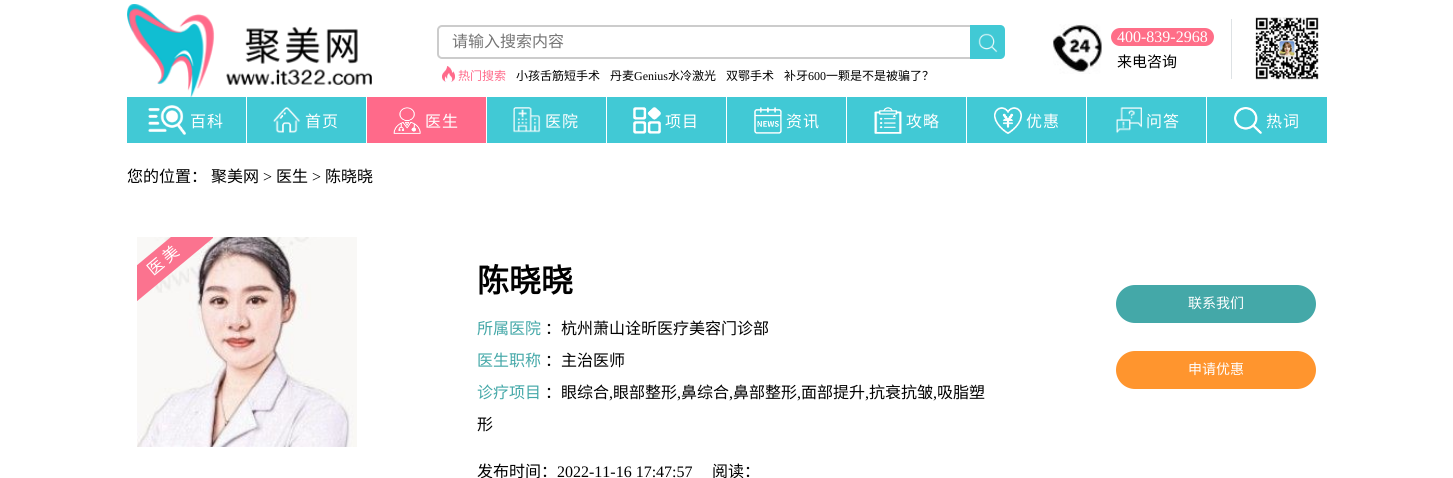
import math
import cairocffi as cairo

surface = cairo.ImageSurface(cairo.FORMAT_RGB24, 1453, 478)
ctx = cairo.Context(surface)
options = cairo.FontOptions()
options.set_hint_metrics(cairo.HINT_METRICS_OFF)
options.set_hint_style(cairo.HINT_STYLE_NONE)
ctx.set_font_options(options)
ctx.set_miter_limit(4)


def rgb(r, g, b):
    ctx.set_source_rgb(r / 255, g / 255, b / 255)


def face(family, size, italic, bold):
    ctx.select_font_face(family, cairo.FONT_SLANT_ITALIC if italic else cairo.FONT_SLANT_NORMAL, cairo.FONT_WEIGHT_BOLD if bold else cairo.FONT_WEIGHT_NORMAL)
    ctx.set_font_size(size)


def label(x, y, s):
    ctx.move_to(x, y)
    ctx.show_text(s)


def tracked(x, y, s, letter, word):
    ctx.move_to(x, y)
    for ch in s:
        ctx.show_text(ch)
        ctx.rel_move_to(letter + word * (ch == ' '), 0)


def rect(x, y, w, h):
    ctx.rectangle(x, y, w, h)
    ctx.fill()


def rrect(x, y, w, h, r):
    ctx.new_sub_path()
    for i, (u, v) in enumerate([(x + w - r, y + h - r), (x + r, y + h - r), (x + r, y + r), (x + w - r, y + r)]):
        ctx.arc(u, v, r, i * math.pi / 2, (i + 1) * math.pi / 2)
    ctx.close_path()


def image(path, x, y, w, h):
    ctx.save()
    ctx.set_source_surface(cairo.ImageSurface.create_from_png(path), x, y)
    ctx.rectangle(x, y, w, h)
    ctx.fill()
    ctx.restore()


rgb(255, 255, 255)
ctx.paint()
image('image0.png', 127, 4, 245, 93)
rrect(438, 26, 565, 32, 4)
rgb(204, 204, 204)
ctx.stroke()
face('Noto Sans CJK SC', 16, 0, 0)
rgb(117, 117, 117)
label(452, 47, '请输入搜索内容')
rgb(65, 201, 213)
ctx.new_path()
ctx.move_to(970, 25)
ctx.line_to(1000, 25)
ctx.curve_to(1003, 25, 1005, 27, 1005, 30)
ctx.line_to(1005, 54)
ctx.curve_to(1005, 57, 1003, 59, 1000, 59)
ctx.line_to(970, 59)
ctx.close_path()
ctx.fill()
image('image1.png', 978, 33, 20, 20)
image('image2.png', 442, 66, 13, 16)
face('Noto Sans CJK SC', 12, 0, 0)
rgb(255, 106, 138)
label(458, 80, '热门搜索')
rgb(0, 0, 0)
label(516, 80, '小孩舌筋短手术')
label(610, 80, '丹麦')
face('Liberation Serif', 12, 0, 0)
label(634, 80, 'Genius')
face('Noto Sans CJK SC', 12, 0, 0)
label(668, 80, '水冷激光')
label(726, 80, '双鄂手术')
label(784, 80, '补牙')
face('Liberation Serif', 12, 0, 0)
label(808, 80, '600')
face('Noto Sans CJK SC', 12, 0, 0)
label(826, 80, '一颗是不是被骗了？')
image('image3.png', 1053, 24, 49, 50)
rgb(255, 110, 136)
rrect(1111, 28, 103, 18, 9)
ctx.fill()
face('Liberation Serif', 16, 0, 0)
rgb(255, 255, 255)
label(1117, 42, '400-839-2968')
face('Noto Sans CJK SC', 15, 0, 0)
rgb(0, 0, 0)
label(1117, 67, '来电咨询')
rgb(222, 226, 229)
rect(1231, 19, 1, 60)
image('image4.png', 1255, 17, 64, 63)
rgb(65, 201, 213)
rect(127, 97, 1200, 46)
rgb(255, 255, 255)
rect(246, 97, 1, 46)
image('image5.png', 148, 105, 38, 30)
face('Noto Sans CJK SC', 16, 0, 0)
tracked(190, 127, '百科', 1, 0)
rect(366, 97, 1, 46)
image('image6.png', 273, 107, 28, 26)
tracked(305, 127, '首页', 1, 0)
rgb(255, 106, 138)
rect(367, 97, 119, 46)
rgb(255, 255, 255)
rect(486, 97, 1, 46)
image('image7.png', 393, 107, 28, 27)
tracked(425, 127, '医生', 1, 0)
rect(606, 97, 1, 46)
image('image8.png', 513, 107, 28, 26)
tracked(545, 127, '医院', 1, 0)
rect(726, 97, 1, 46)
image('image9.png', 633, 107, 28, 27)
tracked(665, 127, '项目', 1, 0)
rect(846, 97, 1, 46)
image('image10.png', 754, 107, 28, 27)
tracked(786, 127, '资讯', 1, 0)
rect(966, 97, 1, 46)
image('image11.png', 874, 107, 28, 27)
tracked(906, 127, '攻略', 1, 0)
rect(1086, 97, 1, 46)
image('image12.png', 994, 107, 28, 27)
tracked(1026, 127, '优惠', 1, 0)
rect(1206, 97, 1, 46)
image('image13.png', 1116, 107, 26, 27)
tracked(1146, 127, '问答', 1, 0)
image('image14.png', 1234, 107, 28, 27)
tracked(1266, 127, '热词', 1, 0)
rgb(0, 0, 0)
label(127, 182, '您的位置：')
label(211, 182, '聚美网')
face('Liberation Serif', 16, 0, 0)
label(263, 182, '>')
face('Noto Sans CJK SC', 16, 0, 0)
label(276, 182, '医生')
face('Liberation Serif', 16, 0, 0)
label(312, 182, '>')
face('Noto Sans CJK SC', 16, 0, 0)
label(325, 182, '陈晓晓')
image('image15.png', 137, 237, 220, 210)
ctx.save()
ctx.rectangle(137, 237, 220, 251)
ctx.clip()
rgb(251, 115, 143)
ctx.new_path()
ctx.move_to(136, 266)
ctx.line_to(213, 202)
ctx.line_to(213, 238)
ctx.line_to(136, 302)
ctx.close_path()
ctx.fill()
ctx.restore()
rgb(255, 255, 255)
ctx.save()
ctx.translate(153, 276)
ctx.rotate(-40 * math.pi / 180)
label(0, 0, '医 美')
ctx.restore()
face('Noto Sans CJK SC', 32, 0, 1)
rgb(0, 0, 0)
label(477, 292, '陈晓晓')
face('Noto Sans CJK SC', 16, 0, 0)
rgb(68, 168, 168)
label(477, 334, '所属医院')
rgb(0, 0, 0)
label(545, 334, '：杭州萧山诠昕医疗美容门诊部')
rgb(68, 168, 168)
label(477, 366, '医生职称')
rgb(0, 0, 0)
label(545, 366, '：主治医师')
rgb(68, 168, 168)
label(477, 398, '诊疗项目')
rgb(0, 0, 0)
label(545, 398, '：眼综合')
face('Liberation Serif', 16, 0, 0)
label(609, 398, ',')
face('Noto Sans CJK SC', 16, 0, 0)
label(613, 398, '眼部整形')
face('Liberation Serif', 16, 0, 0)
label(677, 398, ',')
face('Noto Sans CJK SC', 16, 0, 0)
label(681, 398, '鼻综合')
face('Liberation Serif', 16, 0, 0)
label(729, 398, ',')
face('Noto Sans CJK SC', 16, 0, 0)
label(733, 398, '鼻部整形')
face('Liberation Serif', 16, 0, 0)
label(797, 398, ',')
face('Noto Sans CJK SC', 16, 0, 0)
label(801, 398, '面部提升')
face('Liberation Serif', 16, 0, 0)
label(865, 398, ',')
face('Noto Sans CJK SC', 16, 0, 0)
label(869, 398, '抗衰抗皱')
face('Liberation Serif', 16, 0, 0)
label(933, 398, ',')
face('Noto Sans CJK SC', 16, 0, 0)
label(937, 398, '吸脂塑')
label(477, 430, '形')
label(477, 477, '发布时间：')
face('Liberation Serif', 16, 0, 0)
label(557, 477, '2022-11-16 17:47:57')
face('Noto Sans CJK SC', 16, 0, 0)
label(712, 477, '阅读：')
rgb(68, 168, 168)
rrect(1116, 285, 200, 38, 19)
ctx.fill()
face('Noto Sans CJK SC', 14, 0, 0)
rgb(255, 255, 255)
label(1188, 308, '联系我们')
rgb(255, 149, 46)
rrect(1116, 351, 200, 38, 19)
ctx.fill()
rgb(255, 255, 255)
label(1188, 374, '申请优惠')
surface.write_to_png('render.png')
